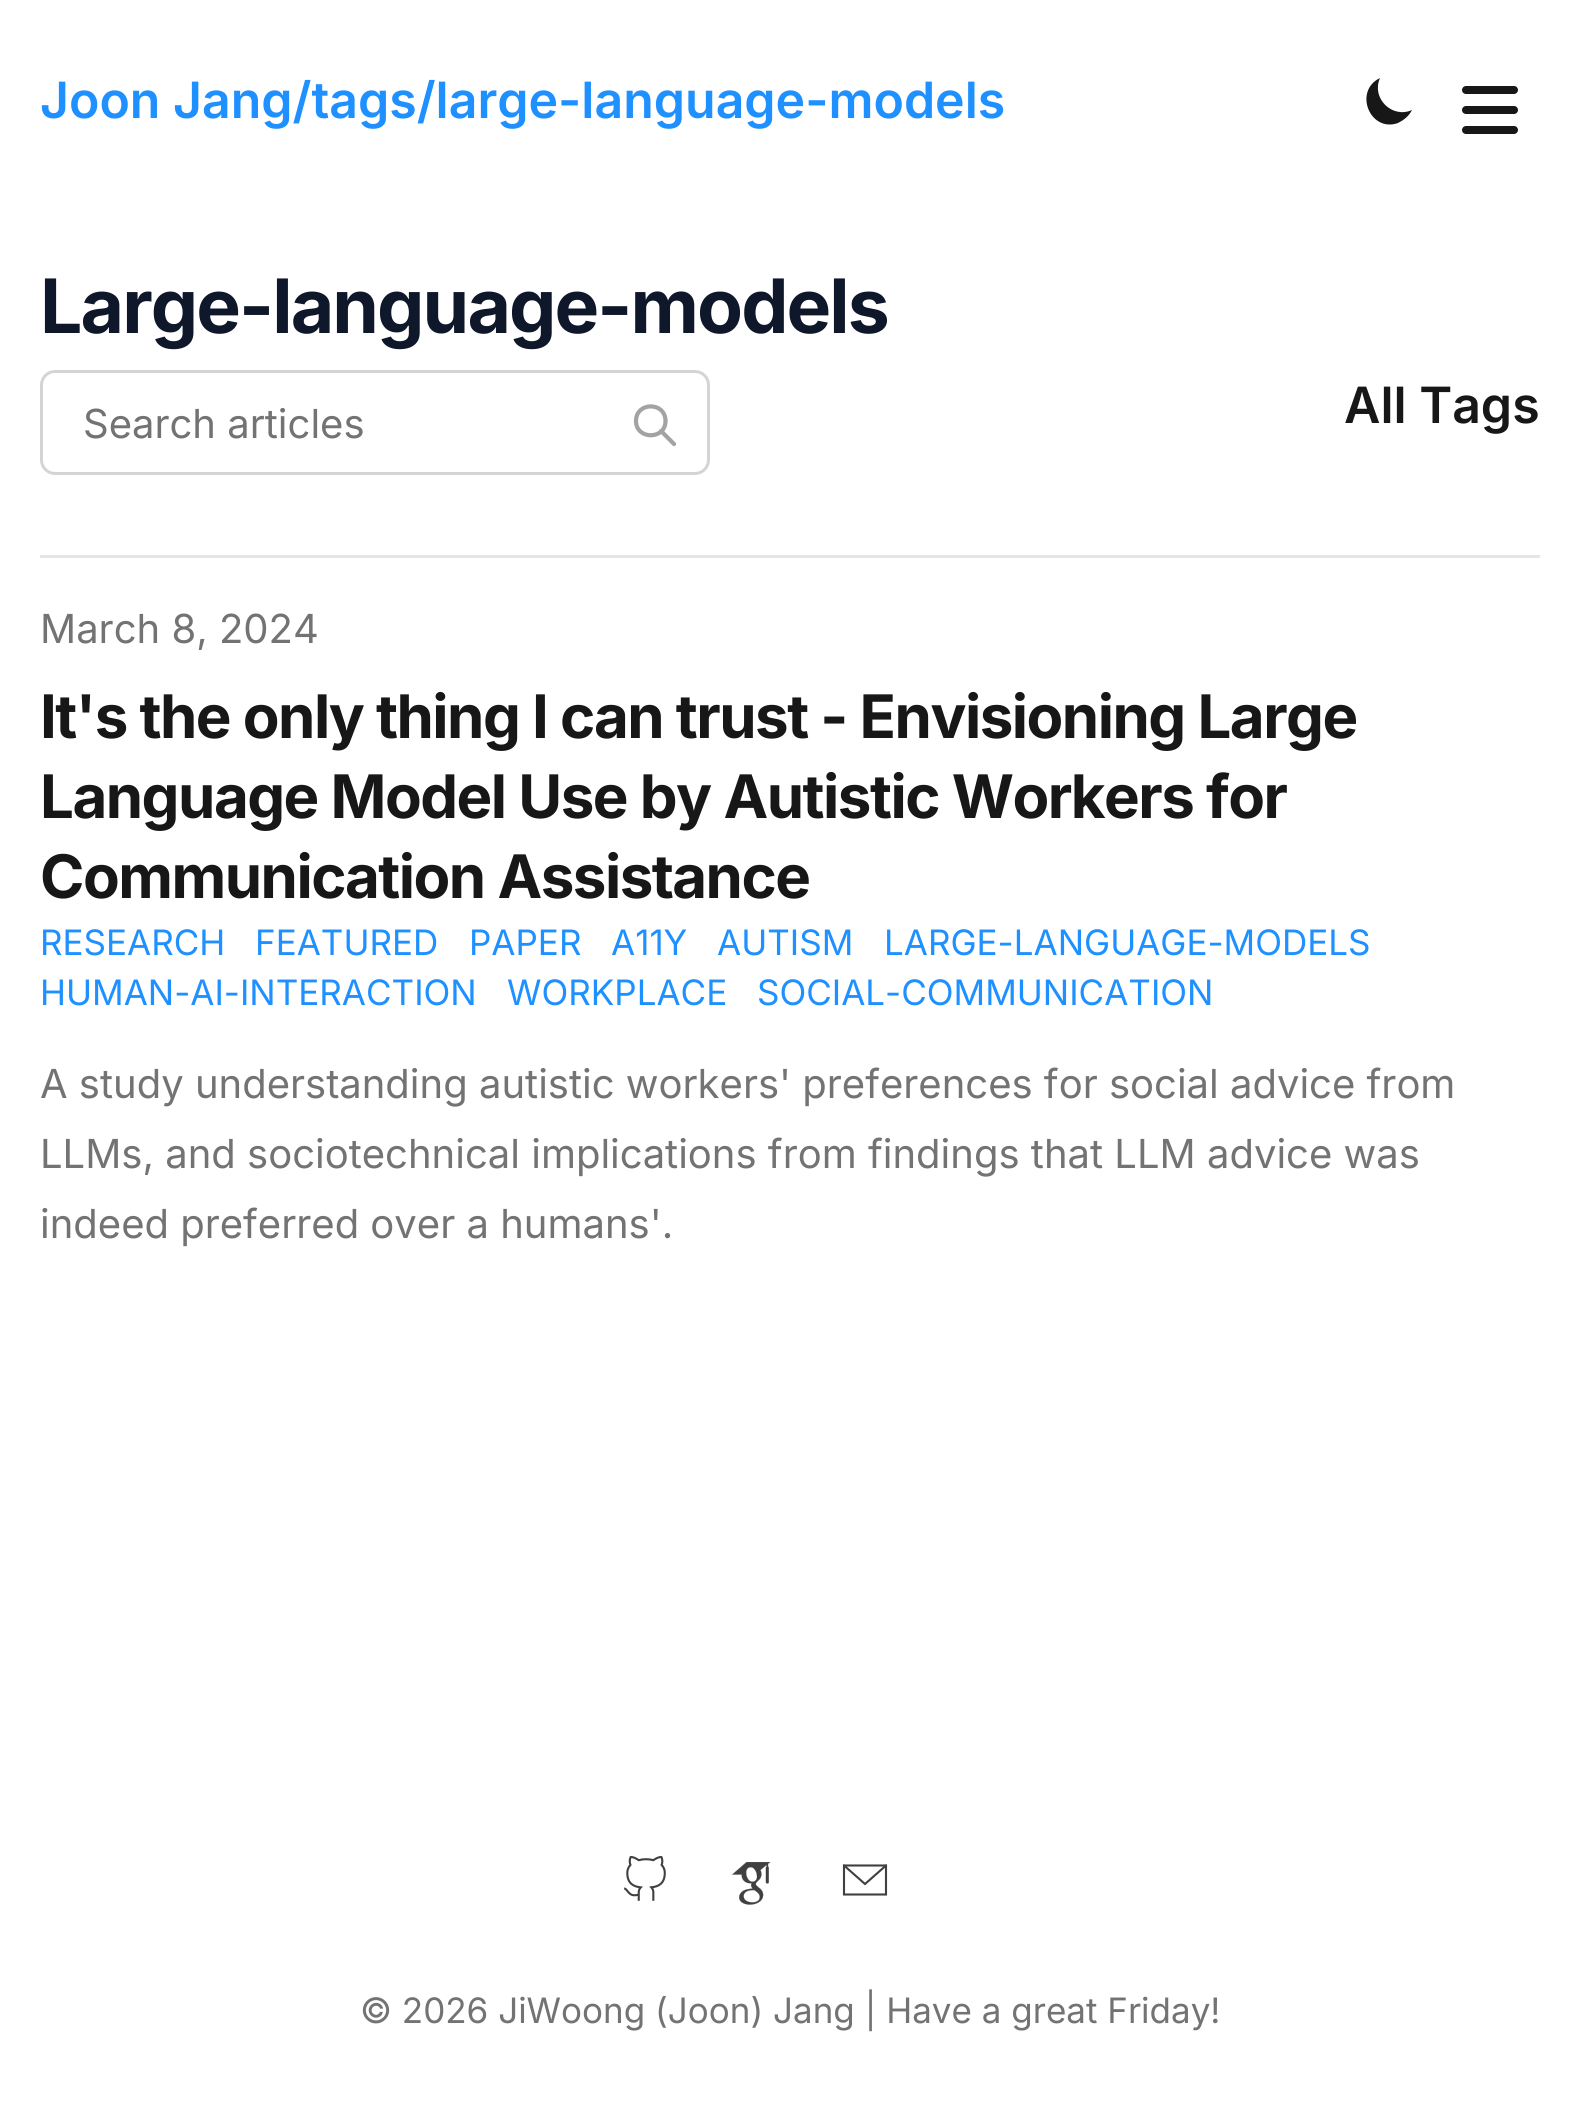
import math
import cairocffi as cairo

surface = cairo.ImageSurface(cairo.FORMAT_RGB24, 1580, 2104)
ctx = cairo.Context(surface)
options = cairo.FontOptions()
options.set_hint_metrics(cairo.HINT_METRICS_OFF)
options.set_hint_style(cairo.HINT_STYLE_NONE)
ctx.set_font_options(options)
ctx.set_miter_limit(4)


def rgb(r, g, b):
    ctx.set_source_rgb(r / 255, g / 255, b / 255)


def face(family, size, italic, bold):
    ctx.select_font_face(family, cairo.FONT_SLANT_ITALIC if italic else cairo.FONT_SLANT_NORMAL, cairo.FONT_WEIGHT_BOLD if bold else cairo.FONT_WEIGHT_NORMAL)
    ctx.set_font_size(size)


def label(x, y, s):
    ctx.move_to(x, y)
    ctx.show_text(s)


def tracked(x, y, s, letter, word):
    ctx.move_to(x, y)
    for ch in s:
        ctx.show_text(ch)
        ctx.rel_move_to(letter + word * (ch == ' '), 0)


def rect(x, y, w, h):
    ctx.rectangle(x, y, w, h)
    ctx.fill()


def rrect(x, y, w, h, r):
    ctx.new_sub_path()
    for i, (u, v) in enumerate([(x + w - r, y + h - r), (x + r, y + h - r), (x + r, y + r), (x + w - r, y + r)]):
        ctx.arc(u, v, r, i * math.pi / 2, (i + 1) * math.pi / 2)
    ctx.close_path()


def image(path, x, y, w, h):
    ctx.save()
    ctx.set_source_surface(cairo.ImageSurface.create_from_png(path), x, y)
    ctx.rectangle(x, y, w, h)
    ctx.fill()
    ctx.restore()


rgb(255, 255, 255)
ctx.paint()
face('Inter SemiBold', 50, 0, 0)
rgb(30, 144, 255)
label(40, 118, 'Joon Jang/tags/large-language-models')
rgb(23, 23, 23)
ctx.new_path()
ctx.move_to(1412, 110)
ctx.curve_to(1392, 119, 1371, 98, 1380, 78)
ctx.curve_to(1353, 91, 1370, 133, 1398, 123)
ctx.curve_to(1404, 120, 1409, 116, 1412, 110)
ctx.close_path()
ctx.fill()
image('image0.png', 1462, 86, 56, 48)
face('Inter', 75, 0, 1)
rgb(15, 23, 42)
tracked(40, 333, 'Large-language-models', -1.9, 0)
rrect(41.5, 371.5, 667, 102, 13.5)
rgb(212, 212, 212)
ctx.set_line_width(3)
ctx.stroke()
face('Inter', 40, 0, 0)
rgb(115, 115, 115)
label(83, 438, 'Search articles')
ctx.new_path()
ctx.move_to(674, 444)
ctx.line_to(661, 431)
ctx.move_to(665.5, 421)
ctx.curve_to(665.5, 440, 636, 440, 636, 421)
ctx.curve_to(636, 401.5, 665.5, 401.5, 665.5, 421)
ctx.close_path()
rgb(163, 163, 163)
ctx.set_line_width(4.2)
ctx.set_line_cap(cairo.LINE_CAP_ROUND)
ctx.set_line_join(cairo.LINE_JOIN_ROUND)
ctx.stroke()
face('Inter SemiBold', 50, 0, 0)
rgb(23, 23, 23)
label(1344, 423, 'All Tags')
rgb(229, 229, 229)
rect(40, 555, 1500, 3)
face('Inter', 40, 0, 0)
rgb(115, 115, 115)
label(40, 643, 'March 8, 2024')
face('Inter', 60, 0, 1)
rgb(23, 23, 23)
tracked(40, 738, 'It\'s the only thing I can trust - Envisioning Large', -1.5, 0)
tracked(40, 818, 'Language Model Use by Autistic Workers for', -1.5, 0)
tracked(40, 898, 'Communication Assistance', -1.5, 0)
face('Inter', 35, 0, 0)
rgb(30, 144, 255)
label(40, 955, 'RESEARCH')
label(255, 955, 'FEATURED')
label(469, 955, 'PAPER')
label(611, 955, 'A11Y')
label(717, 955, 'AUTISM')
label(884, 955, 'LARGE-LANGUAGE-MODELS')
label(40, 1005, 'HUMAN-AI-INTERACTION')
label(507, 1005, 'WORKPLACE')
label(757, 1005, 'SOCIAL-COMMUNICATION')
face('Inter', 40, 0, 0)
rgb(115, 115, 115)
label(40, 1098, 'A study understanding autistic workers\' preferences for social advice from')
label(40, 1168, 'LLMs, and sociotechnical implications from findings that LLM advice was')
label(40, 1238, 'indeed preferred over a humans\'.')
image('image1.png', 624, 1856, 42, 45)
image('image2.png', 732, 1862, 39, 43)
ctx.new_path()
ctx.move_to(844, 1865.5)
ctx.line_to(886, 1865.5)
ctx.line_to(886, 1894.5)
ctx.line_to(844, 1894.5)
ctx.close_path()
rgb(64, 64, 64)
ctx.set_line_width(2.1)
ctx.set_line_cap(cairo.LINE_CAP_BUTT)
ctx.set_line_join(cairo.LINE_JOIN_MITER)
ctx.stroke()
ctx.new_path()
ctx.move_to(844, 1865.5)
ctx.line_to(865, 1884)
ctx.line_to(886, 1865.5)
ctx.set_line_cap(cairo.LINE_CAP_ROUND)
ctx.stroke()
face('Inter', 35, 0, 0)
rgb(115, 115, 115)
label(360, 2023, '© 2026 JiWoong (Joon) Jang | Have a great Friday!')
surface.write_to_png('render.png')
